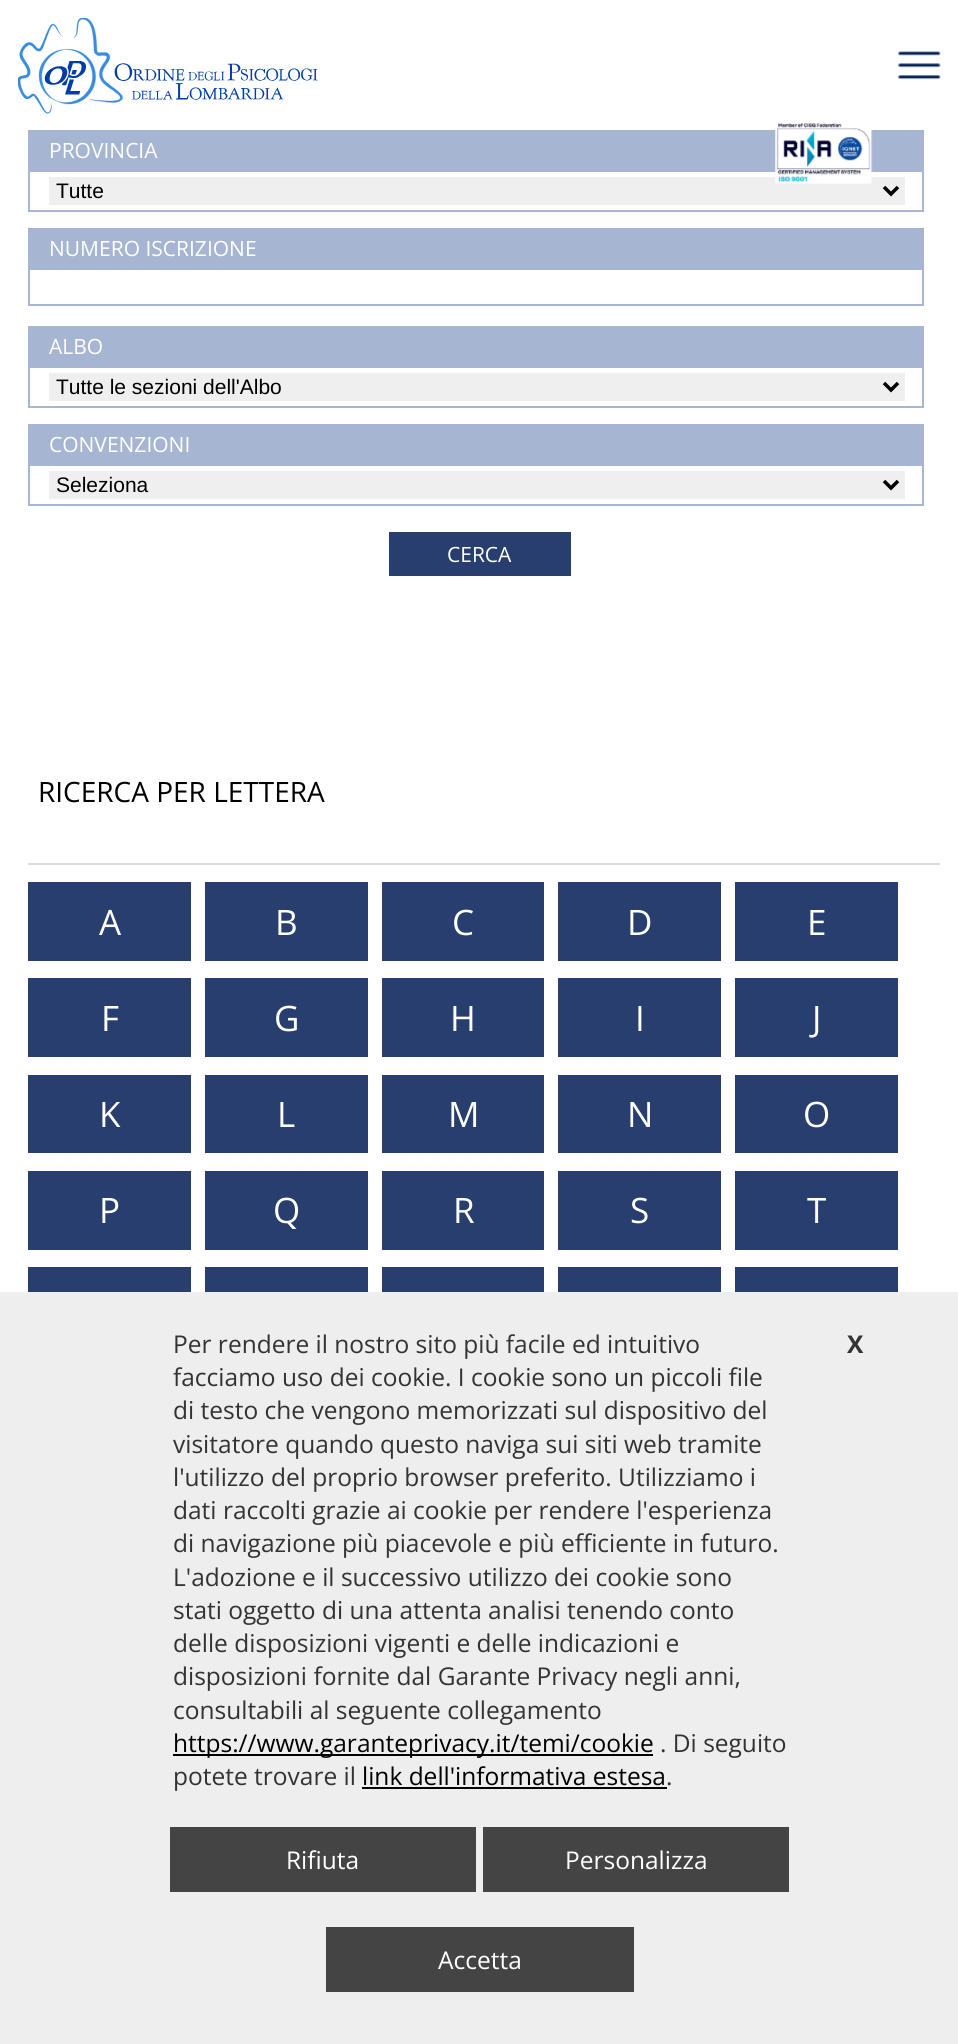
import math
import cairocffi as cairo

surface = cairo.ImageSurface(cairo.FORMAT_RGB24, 958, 2044)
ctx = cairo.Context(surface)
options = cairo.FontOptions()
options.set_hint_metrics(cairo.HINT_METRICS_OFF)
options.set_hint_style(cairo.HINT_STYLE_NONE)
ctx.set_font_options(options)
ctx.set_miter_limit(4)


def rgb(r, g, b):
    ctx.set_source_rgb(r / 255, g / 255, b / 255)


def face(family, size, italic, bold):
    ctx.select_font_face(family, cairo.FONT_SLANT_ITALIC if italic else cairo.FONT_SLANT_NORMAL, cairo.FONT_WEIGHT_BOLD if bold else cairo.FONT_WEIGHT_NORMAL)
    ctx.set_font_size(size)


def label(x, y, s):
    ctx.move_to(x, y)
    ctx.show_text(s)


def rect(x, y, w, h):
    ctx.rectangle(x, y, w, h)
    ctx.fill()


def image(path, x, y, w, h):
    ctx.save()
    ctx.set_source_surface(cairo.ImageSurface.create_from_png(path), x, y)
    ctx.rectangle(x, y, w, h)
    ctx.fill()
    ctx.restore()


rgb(255, 255, 255)
ctx.paint()
image('image0.png', 18, 18, 300, 96)
image('image1.png', 897, 51, 44, 29)
rgb(166, 181, 210)
rect(28, 130, 896, 40)
ctx.rectangle(29, 171, 894, 40)
ctx.stroke()
rgb(239, 239, 239)
rect(49, 177, 856, 28)
image('image2.png', 775, 122, 98, 62)
face('Open Sans', 21, 0, 0)
rgb(255, 255, 255)
label(49, 158, 'PROVINCIA')
ctx.new_path()
ctx.move_to(884, 187)
ctx.line_to(891, 194)
ctx.line_to(898, 187)
rgb(0, 0, 0)
ctx.set_line_width(3.5)
ctx.stroke()
face('Liberation Sans', 21, 0, 0)
label(56, 198, 'Tutte')
rgb(166, 181, 210)
rect(28, 228, 896, 40)
face('Open Sans', 21, 0, 0)
rgb(255, 255, 255)
label(49, 256, 'NUMERO ISCRIZIONE')
ctx.rectangle(29, 269, 894, 36)
rgb(166, 181, 210)
ctx.set_line_width(2)
ctx.stroke()
rect(28, 326, 896, 40)
rgb(255, 255, 255)
label(49, 354, 'ALBO')
ctx.rectangle(29, 367, 894, 40)
rgb(166, 181, 210)
ctx.stroke()
rgb(239, 239, 239)
rect(49, 373, 856, 28)
ctx.new_path()
ctx.move_to(884, 383)
ctx.line_to(891, 390)
ctx.line_to(898, 383)
rgb(0, 0, 0)
ctx.set_line_width(3.5)
ctx.stroke()
face('Liberation Sans', 21, 0, 0)
label(56, 394, 'Tutte le sezioni dell\'Albo')
rgb(166, 181, 210)
rect(28, 424, 896, 40)
face('Open Sans', 21, 0, 0)
rgb(255, 255, 255)
label(49, 452, 'CONVENZIONI')
ctx.rectangle(29, 465, 894, 40)
rgb(166, 181, 210)
ctx.set_line_width(2)
ctx.stroke()
rgb(239, 239, 239)
rect(49, 471, 856, 28)
ctx.new_path()
ctx.move_to(884, 481)
ctx.line_to(891, 488)
ctx.line_to(898, 481)
rgb(0, 0, 0)
ctx.set_line_width(3.5)
ctx.stroke()
face('Liberation Sans', 21, 0, 0)
label(56, 492, 'Seleziona')
rgb(40, 62, 111)
rect(389, 532, 182, 44)
face('Open Sans', 21, 0, 0)
rgb(255, 255, 255)
label(447, 562, 'CERCA')
rgb(221, 221, 221)
rect(28, 863, 912, 2)
face('Open Sans', 28, 0, 0)
rgb(0, 0, 0)
label(38, 802, 'RICERCA PER LETTERA')
rgb(40, 62, 111)
rect(28, 882, 163, 79)
face('Open Sans', 35, 0, 0)
rgb(255, 255, 255)
label(99, 935, 'A')
rgb(40, 62, 111)
rect(205, 882, 163, 79)
rgb(255, 255, 255)
label(275, 935, 'B')
rgb(40, 62, 111)
rect(382, 882, 162, 79)
rgb(255, 255, 255)
label(452, 935, 'C')
rgb(40, 62, 111)
rect(558, 882, 163, 79)
rgb(255, 255, 255)
label(627, 935, 'D')
rgb(40, 62, 111)
rect(735, 882, 163, 79)
rgb(255, 255, 255)
label(807, 935, 'E')
rgb(40, 62, 111)
rect(28, 978, 163, 79)
rgb(255, 255, 255)
label(101, 1031, 'F')
rgb(40, 62, 111)
rect(205, 978, 163, 79)
rgb(255, 255, 255)
label(274, 1031, 'G')
rgb(40, 62, 111)
rect(382, 978, 162, 79)
rgb(255, 255, 255)
label(450, 1031, 'H')
rgb(40, 62, 111)
rect(558, 978, 163, 79)
rgb(255, 255, 255)
label(635, 1031, 'I')
rgb(40, 62, 111)
rect(735, 978, 163, 79)
rgb(255, 255, 255)
label(812, 1031, 'J')
rgb(40, 62, 111)
rect(28, 1075, 163, 78)
rgb(255, 255, 255)
label(99, 1127, 'K')
rgb(40, 62, 111)
rect(205, 1075, 163, 78)
rgb(255, 255, 255)
label(277, 1127, 'L')
rgb(40, 62, 111)
rect(382, 1075, 162, 78)
rgb(255, 255, 255)
label(448, 1127, 'M')
rgb(40, 62, 111)
rect(558, 1075, 163, 78)
rgb(255, 255, 255)
label(627, 1127, 'N')
rgb(40, 62, 111)
rect(735, 1075, 163, 78)
rgb(255, 255, 255)
label(803, 1127, 'O')
rgb(40, 62, 111)
rect(28, 1171, 163, 79)
rgb(255, 255, 255)
label(99, 1223, 'P')
rgb(40, 62, 111)
rect(205, 1171, 163, 79)
rgb(255, 255, 255)
label(273, 1223, 'Q')
rgb(40, 62, 111)
rect(382, 1171, 162, 79)
rgb(255, 255, 255)
label(453, 1223, 'R')
rgb(40, 62, 111)
rect(558, 1171, 163, 79)
rgb(255, 255, 255)
label(630, 1223, 'S')
rgb(40, 62, 111)
rect(735, 1171, 163, 79)
rgb(255, 255, 255)
label(807, 1223, 'T')
rgb(40, 62, 111)
rect(28, 1267, 163, 25)
rect(205, 1267, 163, 25)
rect(382, 1267, 162, 25)
rect(558, 1267, 163, 25)
rect(735, 1267, 163, 25)
rgb(238, 238, 238)
rect(0, 1292, 958, 752)
face('Open Sans', 24.5, 0, 0)
rgb(51, 51, 51)
label(173, 1353, 'Per rendere il nostro sito più facile ed intuitivo')
label(173, 1386, 'facciamo uso dei cookie. I cookie sono un piccoli file')
label(173, 1419, 'di testo che vengono memorizzati sul dispositivo del')
label(173, 1453, 'visitatore quando questo naviga sui siti web tramite')
label(173, 1486, 'l\'utilizzo del proprio browser preferito. Utilizziamo i')
label(173, 1519, 'dati raccolti grazie ai cookie per rendere l\'esperienza')
label(173, 1552, 'di navigazione più piacevole e più efficiente in futuro.')
label(173, 1586, 'L\'adozione e il successivo utilizzo dei cookie sono')
label(173, 1619, 'stati oggetto di una attenta analisi tenendo conto')
label(173, 1652, 'delle disposizioni vigenti e delle indicazioni e')
label(173, 1685, 'disposizioni fornite dal Garante Privacy negli anni,')
label(173, 1719, 'consultabili al seguente collegamento')
rgb(0, 0, 0)
rect(173, 1754, 480, 2)
label(173, 1752, 'https://www.garanteprivacy.it/temi/cookie')
rgb(51, 51, 51)
label(660, 1752, '. Di seguito')
label(173, 1785, 'potete trovare il')
rgb(0, 0, 0)
label(362, 1785, 'link dell\'informativa estesa')
rect(362, 1787, 305, 2)
rgb(51, 51, 51)
label(666, 1785, '.')
face('Open Sans', 24.5, 0, 1)
label(847, 1353, 'X')
rgb(68, 68, 68)
rect(170, 1827, 306, 65)
face('Open Sans', 24.5, 0, 0)
rgb(255, 255, 255)
label(286, 1869, 'Rifiuta')
rgb(68, 68, 68)
rect(483, 1827, 306, 65)
rgb(255, 255, 255)
label(565, 1869, 'Personalizza')
rgb(68, 68, 68)
rect(326, 1927, 308, 65)
rgb(255, 255, 255)
label(438, 1969, 'Accetta')
surface.write_to_png('render.png')
